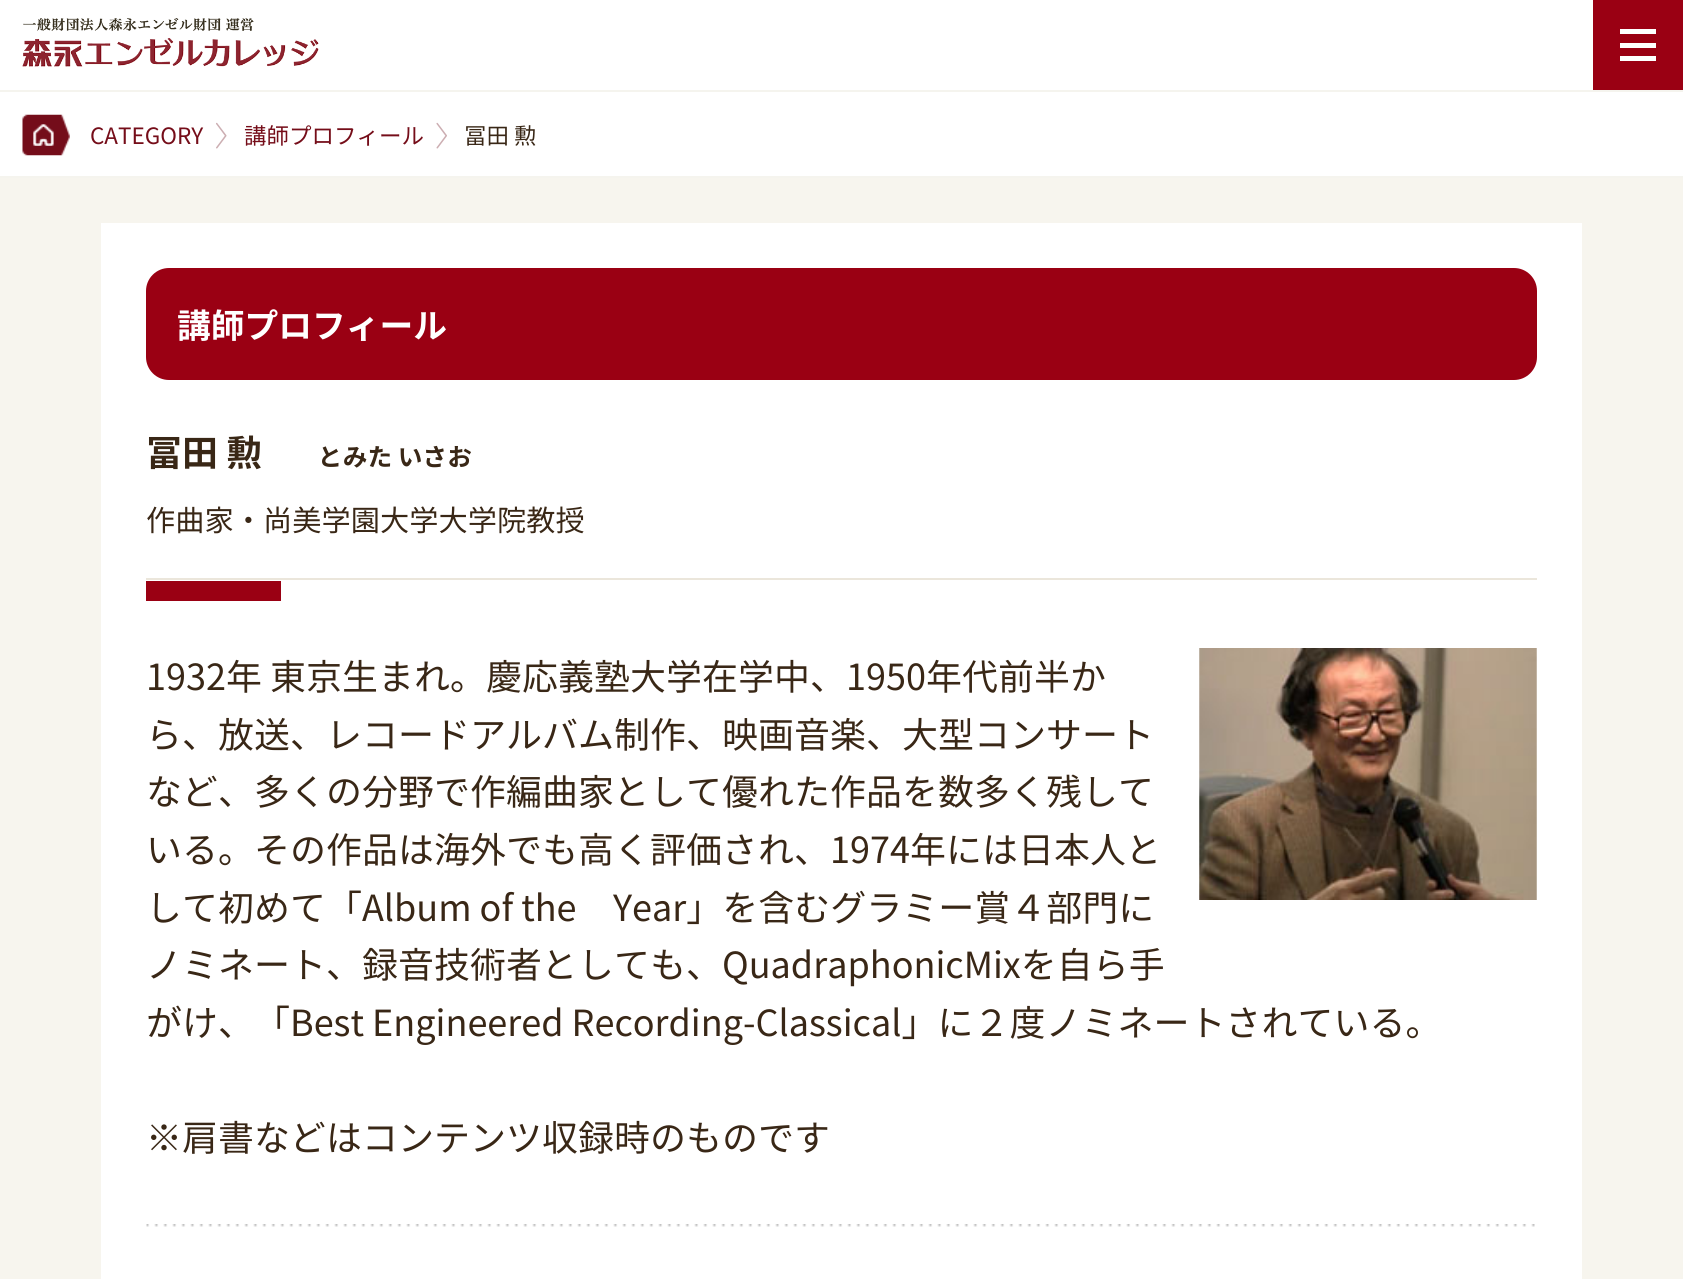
import math
import cairocffi as cairo

surface = cairo.ImageSurface(cairo.FORMAT_RGB24, 1683, 1279)
ctx = cairo.Context(surface)
options = cairo.FontOptions()
options.set_hint_metrics(cairo.HINT_METRICS_OFF)
options.set_hint_style(cairo.HINT_STYLE_NONE)
ctx.set_font_options(options)
ctx.set_miter_limit(4)


def rgb(r, g, b):
    ctx.set_source_rgb(r / 255, g / 255, b / 255)


def face(family, size, italic, bold):
    ctx.select_font_face(family, cairo.FONT_SLANT_ITALIC if italic else cairo.FONT_SLANT_NORMAL, cairo.FONT_WEIGHT_BOLD if bold else cairo.FONT_WEIGHT_NORMAL)
    ctx.set_font_size(size)


def label(x, y, s):
    ctx.move_to(x, y)
    ctx.show_text(s)


def rect(x, y, w, h):
    ctx.rectangle(x, y, w, h)
    ctx.fill()


def rrect(x, y, w, h, r):
    ctx.new_sub_path()
    for i, (u, v) in enumerate([(x + w - r, y + h - r), (x + r, y + h - r), (x + r, y + r), (x + w - r, y + r)]):
        ctx.arc(u, v, r, i * math.pi / 2, (i + 1) * math.pi / 2)
    ctx.close_path()


def image(path, x, y, w, h):
    ctx.save()
    ctx.set_source_surface(cairo.ImageSurface.create_from_png(path), x, y)
    ctx.rectangle(x, y, w, h)
    ctx.fill()
    ctx.restore()


rgb(255, 255, 255)
ctx.paint()
image('image0.png', 22, 18, 297, 49)
rgb(154, 0, 19)
rect(1593, 0, 90, 90)
rgb(255, 255, 255)
rect(1620, 29, 36, 5)
rect(1620, 43, 36, 5)
rect(1620, 56, 36, 5)
rgb(245, 244, 238)
rect(0, 90, 1683, 2)
rect(0, 176, 1683, 2)
image('image1.png', 22, 114, 48, 42)
face('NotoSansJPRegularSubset', 22.5, 0, 0)
rgb(117, 13, 25)
label(90, 144, 'CATEGORY')
image('image2.png', 216, 122, 11, 27)
label(244, 144, '講師プロフィール')
image('image3.png', 436, 122, 11, 27)
rgb(57, 39, 22)
label(464, 144, '冨田 勲')
rgb(247, 245, 238)
rect(0, 178, 1683, 1101)
rgb(255, 255, 255)
rect(101, 223, 1481, 1056)
rgb(154, 0, 19)
rrect(146, 268, 1391, 112, 23)
ctx.fill()
face('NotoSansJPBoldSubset', 33.75, 0, 1)
rgb(255, 255, 255)
label(177, 338, '講師プロフィール')
image('image4.png', 146, 1224, 1389, 3)
rgb(235, 230, 219)
rect(146, 578, 1391, 2)
face('NotoSansJPBoldSubset', 36, 0, 1)
rgb(57, 39, 22)
label(146, 466, '冨田 勲')
face('NotoSansJPBoldSubset', 24.75, 0, 1)
label(318, 466, 'とみた いさお')
face('NotoSansJPRegularSubset', 29.25, 0, 0)
label(146, 531, '作曲家・尚美学園大学大学院教授')
rgb(154, 0, 19)
rect(146, 581, 135, 20)
image('image5.png', 1199, 648, 338, 252)
face('NotoSansJPRegularSubset', 36, 0, 0)
rgb(57, 39, 22)
label(146, 690, '1932年 東京生まれ。慶応義塾大学在学中、1950年代前半か')
label(146, 748, 'ら、放送、レコードアルバム制作、映画音楽、大型コンサート')
label(146, 805, 'など、多くの分野で作編曲家として優れた作品を数多く残して')
label(146, 863, 'いる。その作品は海外でも高く評価され、1974年には日本人と')
label(146, 921, 'して初めて「Album of the')
label(613, 921, 'Year」を含むグラミー賞４部門に')
label(146, 978, 'ノミネート、録音技術者としても、QuadraphonicMixを自ら手')
label(146, 1036, 'がけ、「Best Engineered Recording-Classical」に２度ノミネートされている。')
label(146, 1151, '※肩書などはコンテンツ収録時のものです')
surface.write_to_png('render.png')
